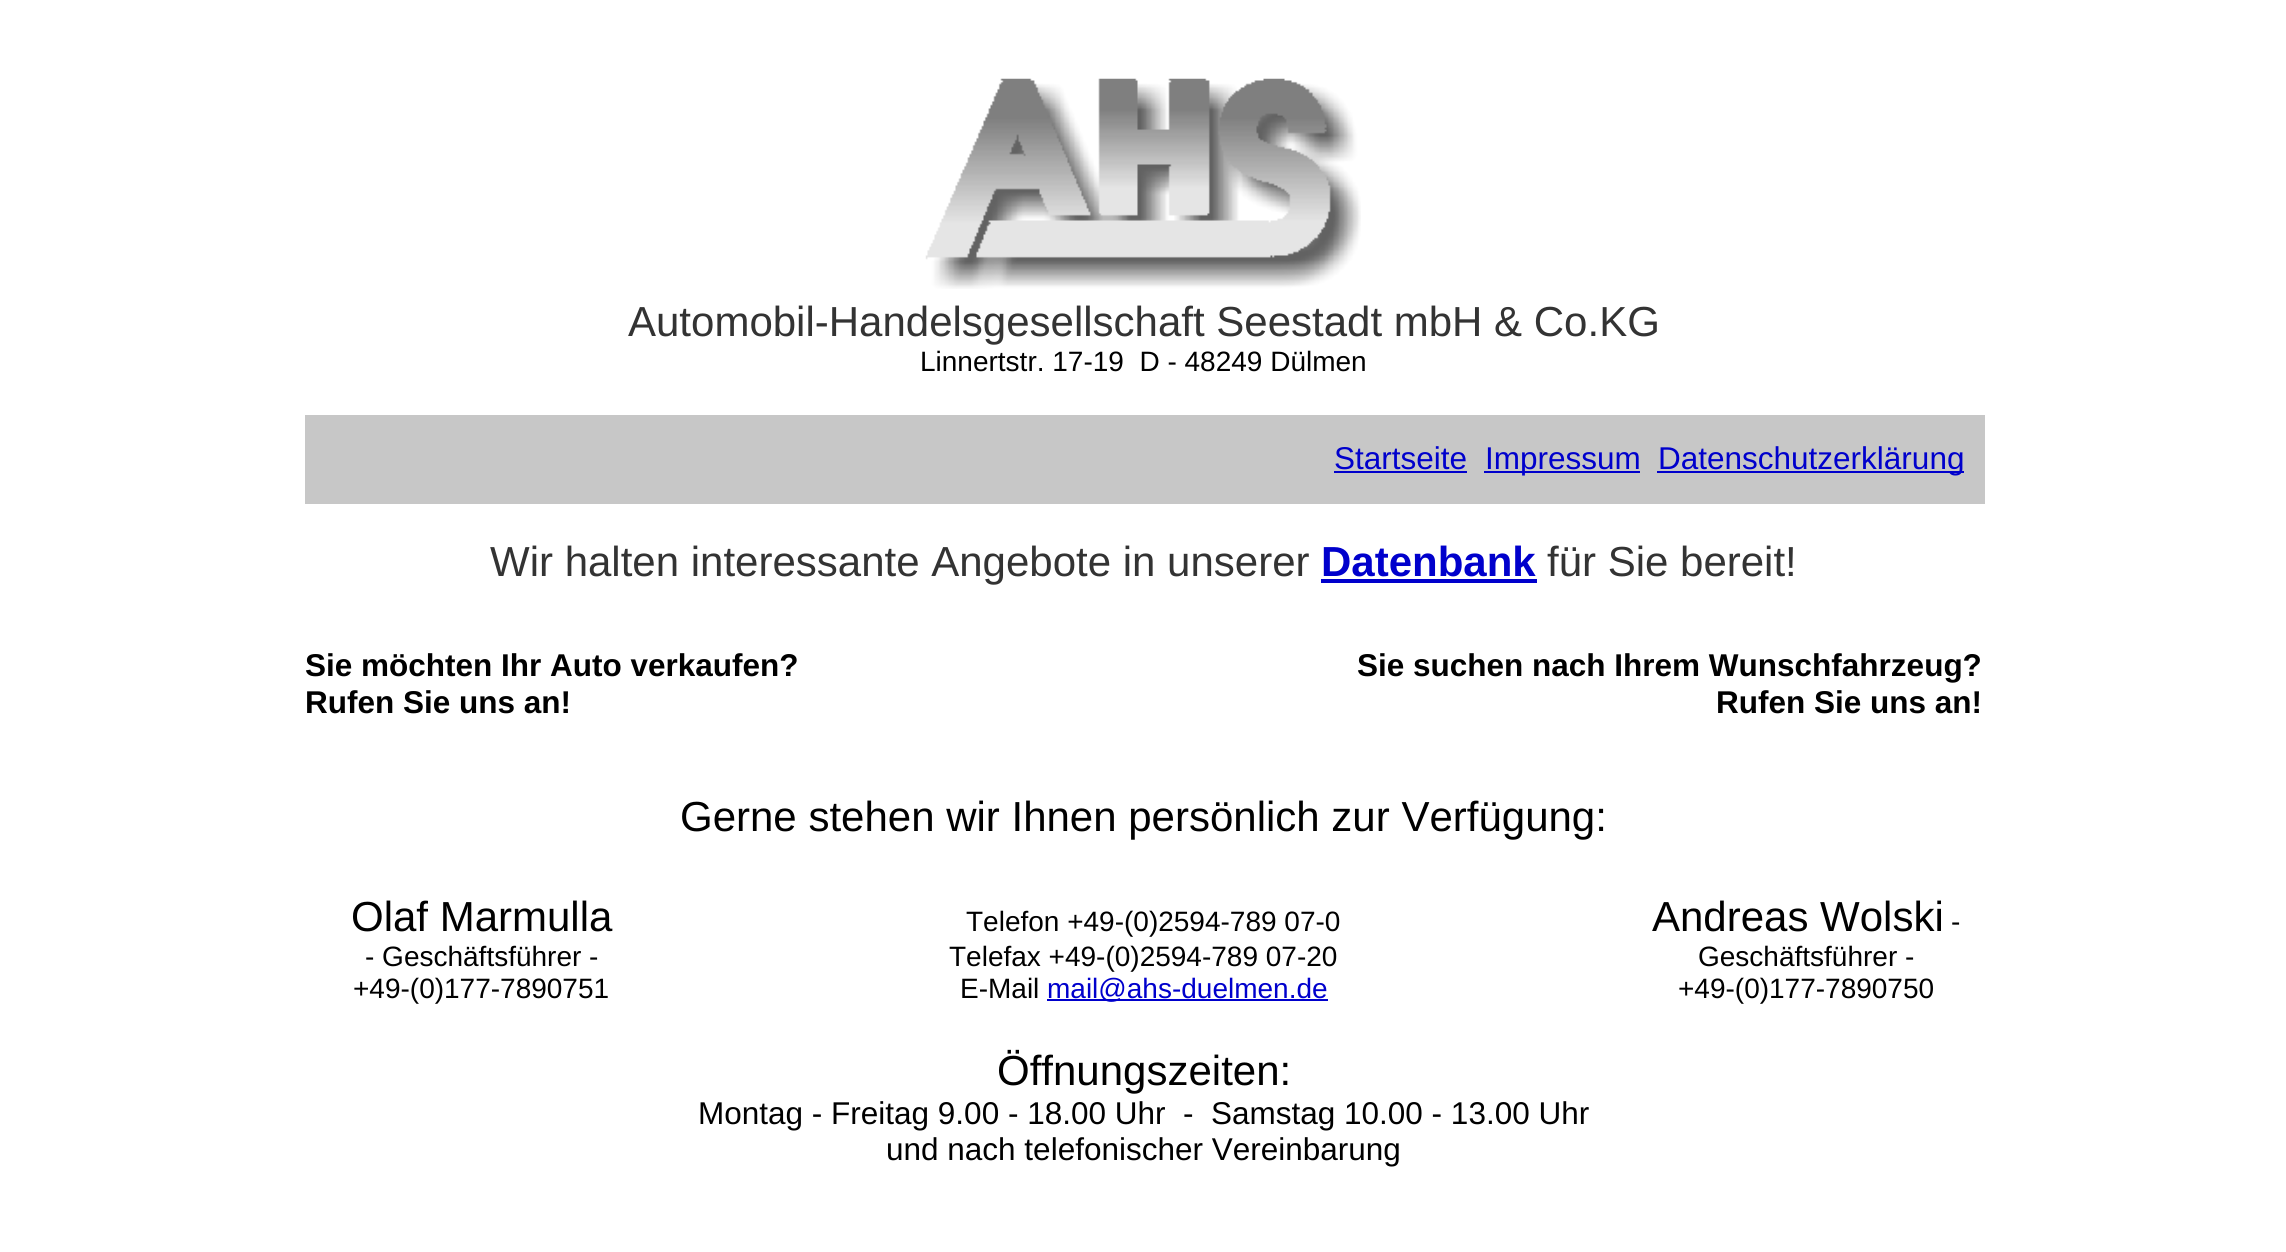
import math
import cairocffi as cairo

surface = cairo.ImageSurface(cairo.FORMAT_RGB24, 2286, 1252)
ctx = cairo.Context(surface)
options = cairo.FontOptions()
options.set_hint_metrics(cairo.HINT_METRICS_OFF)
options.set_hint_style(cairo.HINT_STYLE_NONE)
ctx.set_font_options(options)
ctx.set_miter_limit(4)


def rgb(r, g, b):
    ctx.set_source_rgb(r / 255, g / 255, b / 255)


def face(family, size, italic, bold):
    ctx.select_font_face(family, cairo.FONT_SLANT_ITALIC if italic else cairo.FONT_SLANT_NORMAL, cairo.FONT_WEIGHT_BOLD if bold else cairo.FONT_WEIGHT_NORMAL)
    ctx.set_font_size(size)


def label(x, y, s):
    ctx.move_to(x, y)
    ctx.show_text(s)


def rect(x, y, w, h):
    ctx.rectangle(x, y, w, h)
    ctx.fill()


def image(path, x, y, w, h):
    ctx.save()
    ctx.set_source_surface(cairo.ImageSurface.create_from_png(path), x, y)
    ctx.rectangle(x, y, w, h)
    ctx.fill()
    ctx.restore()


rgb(255, 255, 255)
ctx.paint()
image('image0.png', 925, 78, 436, 211)
face('Liberation Sans', 42, 0, 0)
rgb(51, 51, 51)
label(628, 336, 'Automobil-Handelsgesellschaft Seestadt mbH & Co.KG')
face('Liberation Sans', 28, 0, 0)
rgb(0, 0, 0)
label(920, 371, 'Linnertstr. 17-19  D - 48249 Dülmen')
rgb(199, 199, 199)
rect(305, 415, 1680, 89)
face('Liberation Sans', 31.5, 0, 0)
rgb(0, 0, 204)
label(1334, 469, 'Startseite')
rect(1334, 471, 133, 2)
rect(1484, 471, 156, 2)
label(1485, 469, 'Impressum')
rect(1657, 471, 307, 2)
label(1658, 469, 'Datenschutzerklärung')
face('Liberation Sans', 42, 0, 0)
rgb(51, 51, 51)
label(490, 576, 'Wir halten interessante Angebote in unserer')
face('Liberation Sans', 42, 0, 1)
rgb(0, 0, 204)
label(1321, 576, 'Datenbank')
rect(1321, 579, 216, 4)
face('Liberation Sans', 42, 0, 0)
rgb(51, 51, 51)
label(1547, 576, 'für Sie bereit!')
face('Liberation Sans', 31.5, 0, 1)
rgb(0, 0, 0)
label(305, 676, 'Sie möchten Ihr Auto verkaufen?')
label(305, 713, 'Rufen Sie uns an!')
label(1357, 676, 'Sie suchen nach Ihrem Wunschfahrzeug?')
label(1716, 713, 'Rufen Sie uns an!')
face('Liberation Sans', 42, 0, 0)
label(680, 831, 'Gerne stehen wir Ihnen persönlich zur Verfügung:')
label(351, 931, 'Olaf Marmulla')
face('Liberation Sans', 28, 0, 0)
label(365, 966, '- Geschäftsführer -')
label(353, 998, '+49-(0)177-7890751')
label(966, 931, 'Telefon +49-(0)2594-789 07-0')
label(949, 966, 'Telefax +49-(0)2594-789 07-20')
label(960, 998, 'E-Mail')
rgb(0, 0, 204)
rect(1047, 999, 281, 2)
label(1047, 998, 'mail@ahs-duelmen.de')
face('Liberation Sans', 42, 0, 0)
rgb(0, 0, 0)
label(1652, 931, 'Andreas Wolski')
face('Liberation Sans', 28, 0, 0)
label(1951, 931, '-')
label(1698, 966, 'Geschäftsführer -')
label(1678, 998, '+49-(0)177-7890750')
face('Liberation Sans', 42, 0, 0)
label(997, 1085, 'Öffnungszeiten:')
face('Liberation Sans', 31.5, 0, 0)
label(698, 1124, 'Montag - Freitag 9.00 - 18.00 Uhr  -  Samstag 10.00 - 13.00 Uhr')
label(886, 1160, 'und nach telefonischer Vereinbarung')
surface.write_to_png('render.png')
